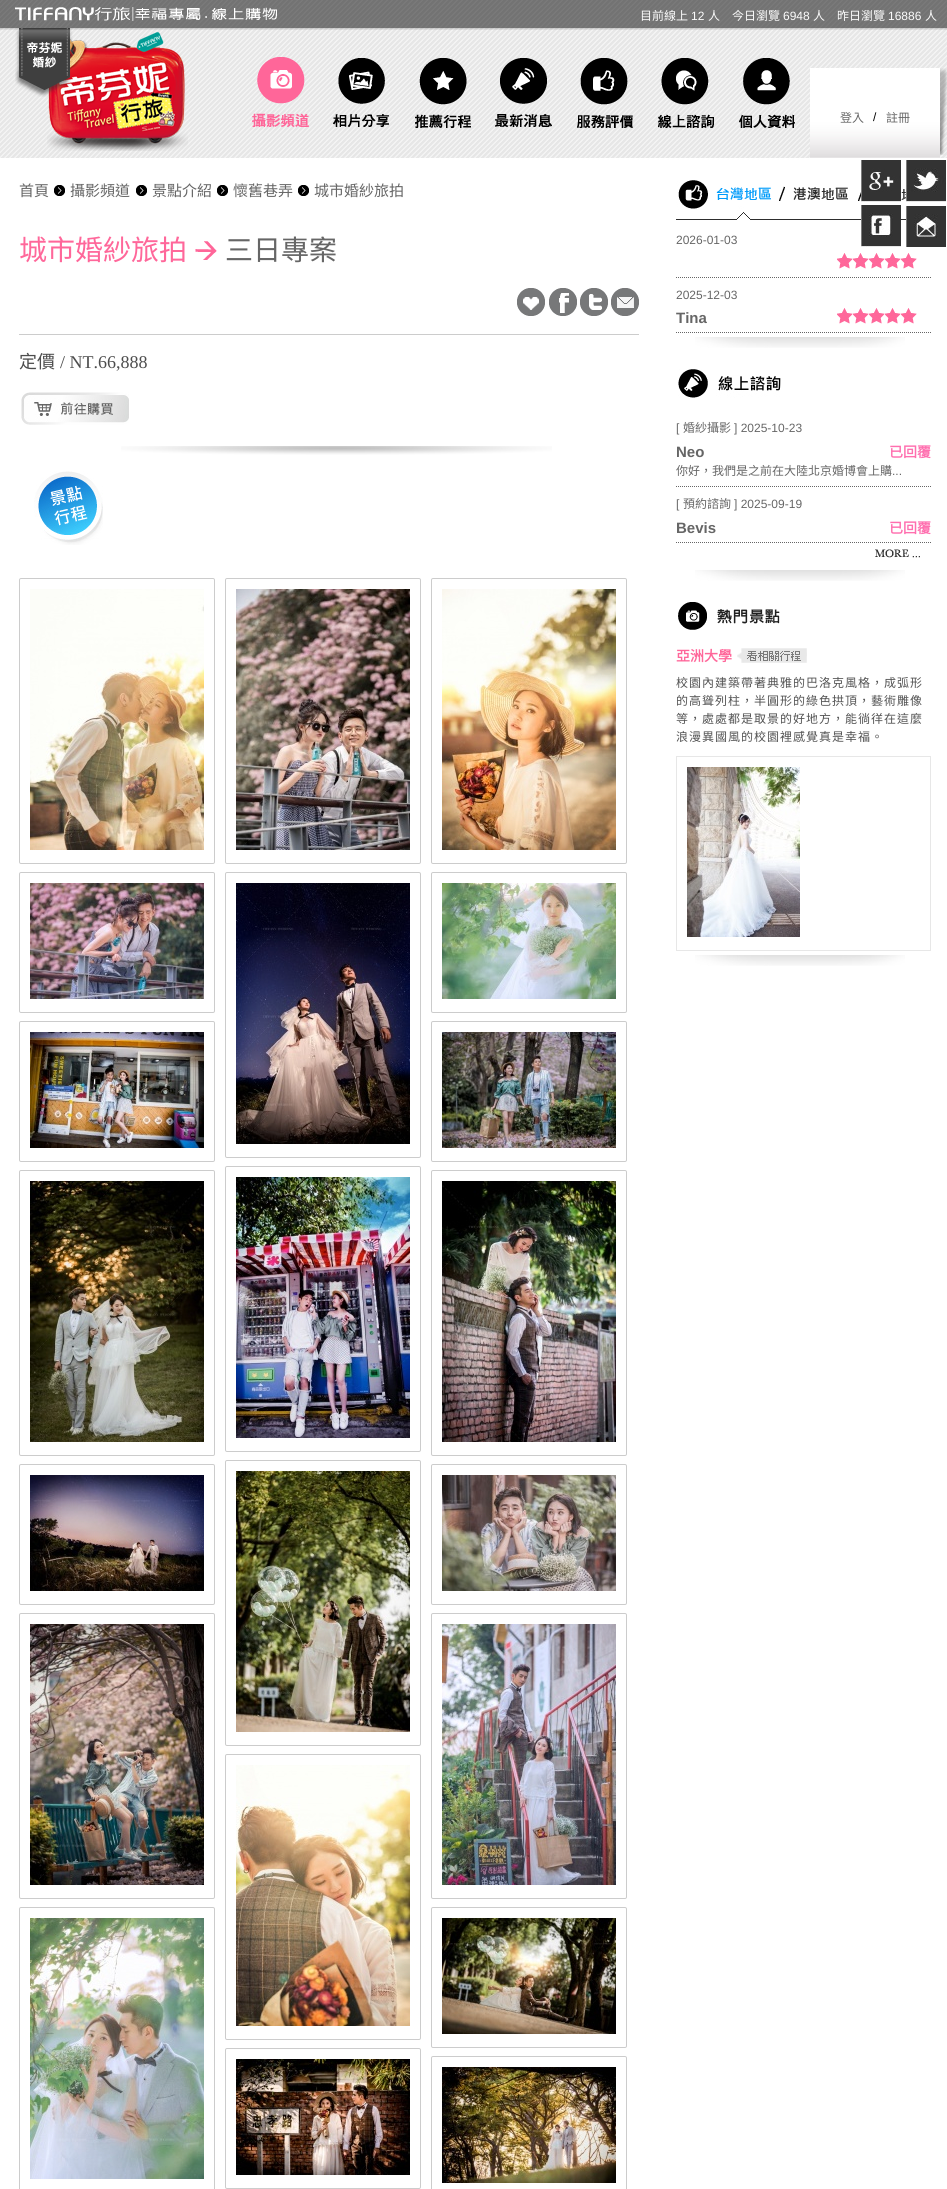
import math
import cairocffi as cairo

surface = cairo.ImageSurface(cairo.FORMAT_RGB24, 947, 2189)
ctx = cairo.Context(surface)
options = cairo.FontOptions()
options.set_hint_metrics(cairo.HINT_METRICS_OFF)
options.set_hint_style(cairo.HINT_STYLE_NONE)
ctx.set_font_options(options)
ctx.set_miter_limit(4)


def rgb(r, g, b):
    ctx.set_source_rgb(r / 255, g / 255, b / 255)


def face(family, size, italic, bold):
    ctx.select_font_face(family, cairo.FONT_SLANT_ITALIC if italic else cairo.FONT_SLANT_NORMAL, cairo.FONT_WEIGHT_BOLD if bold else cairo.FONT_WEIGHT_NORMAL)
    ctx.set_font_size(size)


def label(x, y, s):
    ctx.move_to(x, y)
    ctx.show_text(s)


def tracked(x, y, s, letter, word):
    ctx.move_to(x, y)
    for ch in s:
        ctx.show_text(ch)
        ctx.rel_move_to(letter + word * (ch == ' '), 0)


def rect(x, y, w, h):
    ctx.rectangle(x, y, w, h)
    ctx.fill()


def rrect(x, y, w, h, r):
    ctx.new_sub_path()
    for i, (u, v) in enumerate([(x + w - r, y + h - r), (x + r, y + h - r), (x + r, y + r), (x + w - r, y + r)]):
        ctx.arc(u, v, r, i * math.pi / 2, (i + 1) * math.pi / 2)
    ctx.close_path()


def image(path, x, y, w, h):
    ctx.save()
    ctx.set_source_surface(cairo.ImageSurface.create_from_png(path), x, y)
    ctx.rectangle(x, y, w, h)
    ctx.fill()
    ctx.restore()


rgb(255, 255, 255)
ctx.paint()
image('image0.png', 0, 0, 947, 158)
image('image1.png', 0, 0, 947, 30)
image('image2.png', 15, 7, 262, 14)
face('Noto Sans CJK TC', 12, 0, 0)
rgb(252, 252, 252)
label(640, 20, '目前線上')
face('Liberation Sans', 12, 0, 0)
label(691, 20, '12')
face('Noto Sans CJK TC', 12, 0, 0)
label(708, 20, '人　今日瀏覽')
face('Liberation Sans', 12, 0, 0)
label(783, 20, '6948')
face('Noto Sans CJK TC', 12, 0, 0)
label(813, 20, '人　昨日瀏覽')
face('Liberation Sans', 12, 0, 0)
label(888, 20, '16886')
face('Noto Sans CJK TC', 12, 0, 0)
label(925, 20, '人')
image('image4.png', 47, 32, 141, 119)
image('image3.png', 15, 28, 58, 69)
image('image5.png', 252, 57, 57, 70)
image('image6.png', 333, 58, 56, 69)
image('image7.png', 415, 58, 56, 70)
image('image8.png', 495, 58, 57, 69)
image('image9.png', 577, 58, 56, 70)
image('image10.png', 658, 58, 56, 70)
image('image11.png', 739, 58, 56, 70)
image('image12.png', 810, 68, 130, 90)
rgb(102, 102, 102)
label(840, 122, '登入')
face('Liberation Sans', 12, 0, 0)
rgb(0, 0, 0)
label(873, 121, '/')
face('Noto Sans CJK TC', 12, 0, 0)
rgb(102, 102, 102)
label(886, 122, '註冊')
image('image13.png', 940, 68, 7, 87)
face('Noto Sans CJK TC', 15, 0, 0)
label(19, 196, '首頁')
image('image14.png', 54, 185, 11, 11)
label(70, 196, '攝影頻道')
image('image14.png', 136, 185, 11, 11)
label(152, 196, '景點介紹')
image('image14.png', 217, 185, 11, 11)
label(233, 196, '懷舊巷弄')
image('image14.png', 298, 185, 11, 11)
label(314, 196, '城市婚紗旅拍')
face('Noto Sans CJK TC', 28, 0, 0)
rgb(255, 103, 154)
label(19, 260, '城市婚紗旅拍')
image('image15.png', 195, 241, 22, 19)
rgb(102, 102, 102)
label(225, 260, '三日專案')
image('image16.png', 517, 288, 28, 28)
image('image17.png', 549, 288, 28, 28)
image('image18.png', 580, 288, 28, 28)
image('image19.png', 611, 288, 28, 28)
rgb(204, 204, 204)
rect(19, 334, 620, 1)
face('Noto Sans CJK TC', 18, 0, 0)
rgb(77, 77, 77)
label(19, 368, '定價')
face('Liberation Serif', 18, 0, 0)
label(60, 368, '/ NT.66,888')
image('image20.png', 21, 392, 108, 33)
image('image21.png', 121, 446, 431, 9)
image('image22.png', 34, 471, 69, 74)
rrect(19.5, 578.5, 195, 285, 1.5)
rgb(204, 204, 204)
ctx.set_line_width(1)
ctx.stroke()
image('image23.png', 30, 589, 174, 261)
rrect(225.5, 578.5, 195, 285, 1.5)
ctx.stroke()
image('image24.png', 236, 589, 174, 261)
rrect(431.5, 578.5, 195, 285, 1.5)
ctx.stroke()
image('image25.png', 442, 589, 174, 261)
rrect(19.5, 872.5, 195, 140, 1.5)
ctx.stroke()
image('image26.png', 30, 883, 174, 116)
rrect(225.5, 872.5, 195, 285, 1.5)
ctx.stroke()
image('image27.png', 236, 883, 174, 261)
rrect(431.5, 872.5, 195, 140, 1.5)
ctx.stroke()
image('image28.png', 442, 883, 174, 116)
rrect(19.5, 1021.5, 195, 140, 1.5)
ctx.stroke()
image('image29.png', 30, 1032, 174, 116)
rrect(431.5, 1021.5, 195, 140, 1.5)
ctx.stroke()
image('image30.png', 442, 1032, 174, 116)
rrect(19.5, 1170.5, 195, 285, 1.5)
ctx.stroke()
image('image31.png', 30, 1181, 174, 261)
rrect(225.5, 1166.5, 195, 285, 1.5)
ctx.stroke()
image('image32.png', 236, 1177, 174, 261)
rrect(431.5, 1170.5, 195, 285, 1.5)
ctx.stroke()
image('image33.png', 442, 1181, 174, 261)
rrect(19.5, 1464.5, 195, 140, 1.5)
ctx.stroke()
image('image34.png', 30, 1475, 174, 116)
rrect(225.5, 1460.5, 195, 285, 1.5)
ctx.stroke()
image('image35.png', 236, 1471, 174, 261)
rrect(431.5, 1464.5, 195, 140, 1.5)
ctx.stroke()
image('image36.png', 442, 1475, 174, 116)
rrect(19.5, 1613.5, 195, 285, 1.5)
ctx.stroke()
image('image37.png', 30, 1624, 174, 261)
rrect(225.5, 1754.5, 195, 285, 1.5)
ctx.stroke()
image('image38.png', 236, 1765, 174, 261)
rrect(431.5, 1613.5, 195, 285, 1.5)
ctx.stroke()
image('image39.png', 442, 1624, 174, 261)
rrect(19.5, 1907.5, 195, 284, 1.5)
ctx.stroke()
image('image40.png', 30, 1918, 174, 261)
rrect(431.5, 1907.5, 195, 140, 1.5)
ctx.stroke()
image('image41.png', 442, 1918, 174, 116)
rrect(225.5, 2048.5, 195, 140, 1.5)
ctx.stroke()
image('image42.png', 236, 2059, 174, 116)
rrect(431.5, 2056.5, 195, 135, 1.5)
ctx.stroke()
image('image43.png', 442, 2067, 174, 116)
image('image44.png', 676, 180, 37, 40)
image('image45.png', 713, 187, 66, 33)
image('image46.png', 779, 186, 85, 34)
image('image47.png', 864, 188, 67, 32)
ctx.new_path()
ctx.move_to(676, 277.5)
ctx.line_to(931, 277.5)
rgb(102, 102, 102)
ctx.set_dash([1, 1])
ctx.stroke()
face('Liberation Sans', 12, 0, 0)
label(676, 244, '2026-01-03')
image('image48.png', 837, 253, 16, 16)
image('image48.png', 853, 253, 16, 16)
image('image48.png', 869, 253, 16, 16)
image('image48.png', 885, 253, 16, 16)
image('image48.png', 901, 253, 16, 16)
ctx.new_path()
ctx.move_to(676, 332.5)
ctx.line_to(931, 332.5)
ctx.stroke()
label(676, 299, '2025-12-03')
face('Liberation Sans', 15, 0, 1)
label(676, 323, 'Tina')
image('image48.png', 837, 308, 16, 16)
image('image48.png', 853, 308, 16, 16)
image('image48.png', 869, 308, 16, 16)
image('image48.png', 885, 308, 16, 16)
image('image48.png', 901, 308, 16, 16)
image('image49.png', 695, 337, 210, 11)
image('image50.png', 678, 369, 103, 29)
ctx.new_path()
ctx.move_to(676, 486.5)
ctx.line_to(931, 486.5)
ctx.stroke()
face('Liberation Sans', 12, 0, 0)
label(676, 432, '[')
face('Noto Sans CJK TC', 12, 0, 0)
label(683, 432, '婚紗攝影')
face('Liberation Sans', 12, 0, 0)
label(734, 432, '] 2025-10-23')
face('Liberation Sans', 15, 0, 1)
label(676, 457, 'Neo')
face('Noto Sans CJK TC', 14, 0, 1)
rgb(255, 111, 175)
label(889, 457, '已回覆')
face('Noto Sans CJK TC', 12, 0, 0)
rgb(102, 102, 102)
label(676, 475, '你好，我們是之前在大陸北京婚博會上購')
face('Liberation Sans', 12, 0, 0)
label(892, 475, '...')
ctx.new_path()
ctx.move_to(676, 542.5)
ctx.line_to(931, 542.5)
ctx.stroke()
label(676, 508, '[')
face('Noto Sans CJK TC', 12, 0, 0)
label(683, 508, '預約諮詢')
face('Liberation Sans', 12, 0, 0)
label(734, 508, '] 2025-09-19')
face('Liberation Sans', 15, 0, 1)
label(676, 533, 'Bevis')
face('Noto Sans CJK TC', 14, 0, 1)
rgb(255, 111, 175)
label(889, 533, '已回覆')
image('image51.png', 875, 549, 45, 9)
image('image49.png', 695, 570, 210, 11)
image('image52.png', 678, 602, 102, 28)
rgb(255, 103, 154)
label(676, 661, '亞洲大學')
image('image53.png', 737, 648, 70, 15)
face('Noto Sans CJK TC', 12, 0, 0)
rgb(83, 83, 83)
tracked(676, 687, '校園內建築帶著典雅的巴洛克風格，成弧形', 1, 0)
tracked(676, 705, '的高聳列柱，半圓形的綠色拱頂，藝術雕像', 1, 0)
tracked(676, 723, '等，處處都是取景的好地方，能徜徉在這麼', 1, 0)
tracked(676, 741, '浪漫異國風的校園裡感覺真是幸福。', 1, 0)
ctx.rectangle(676.5, 756.5, 254, 194)
rgb(231, 231, 231)
ctx.set_dash([])
ctx.stroke()
image('image54.png', 687, 767, 113, 170)
image('image49.png', 695, 955, 210, 11)
image('image55.png', 861, 160, 40, 42)
image('image56.png', 906, 160, 40, 42)
image('image57.png', 861, 205, 40, 42)
image('image58.png', 906, 206, 40, 41)
surface.write_to_png('render.png')
